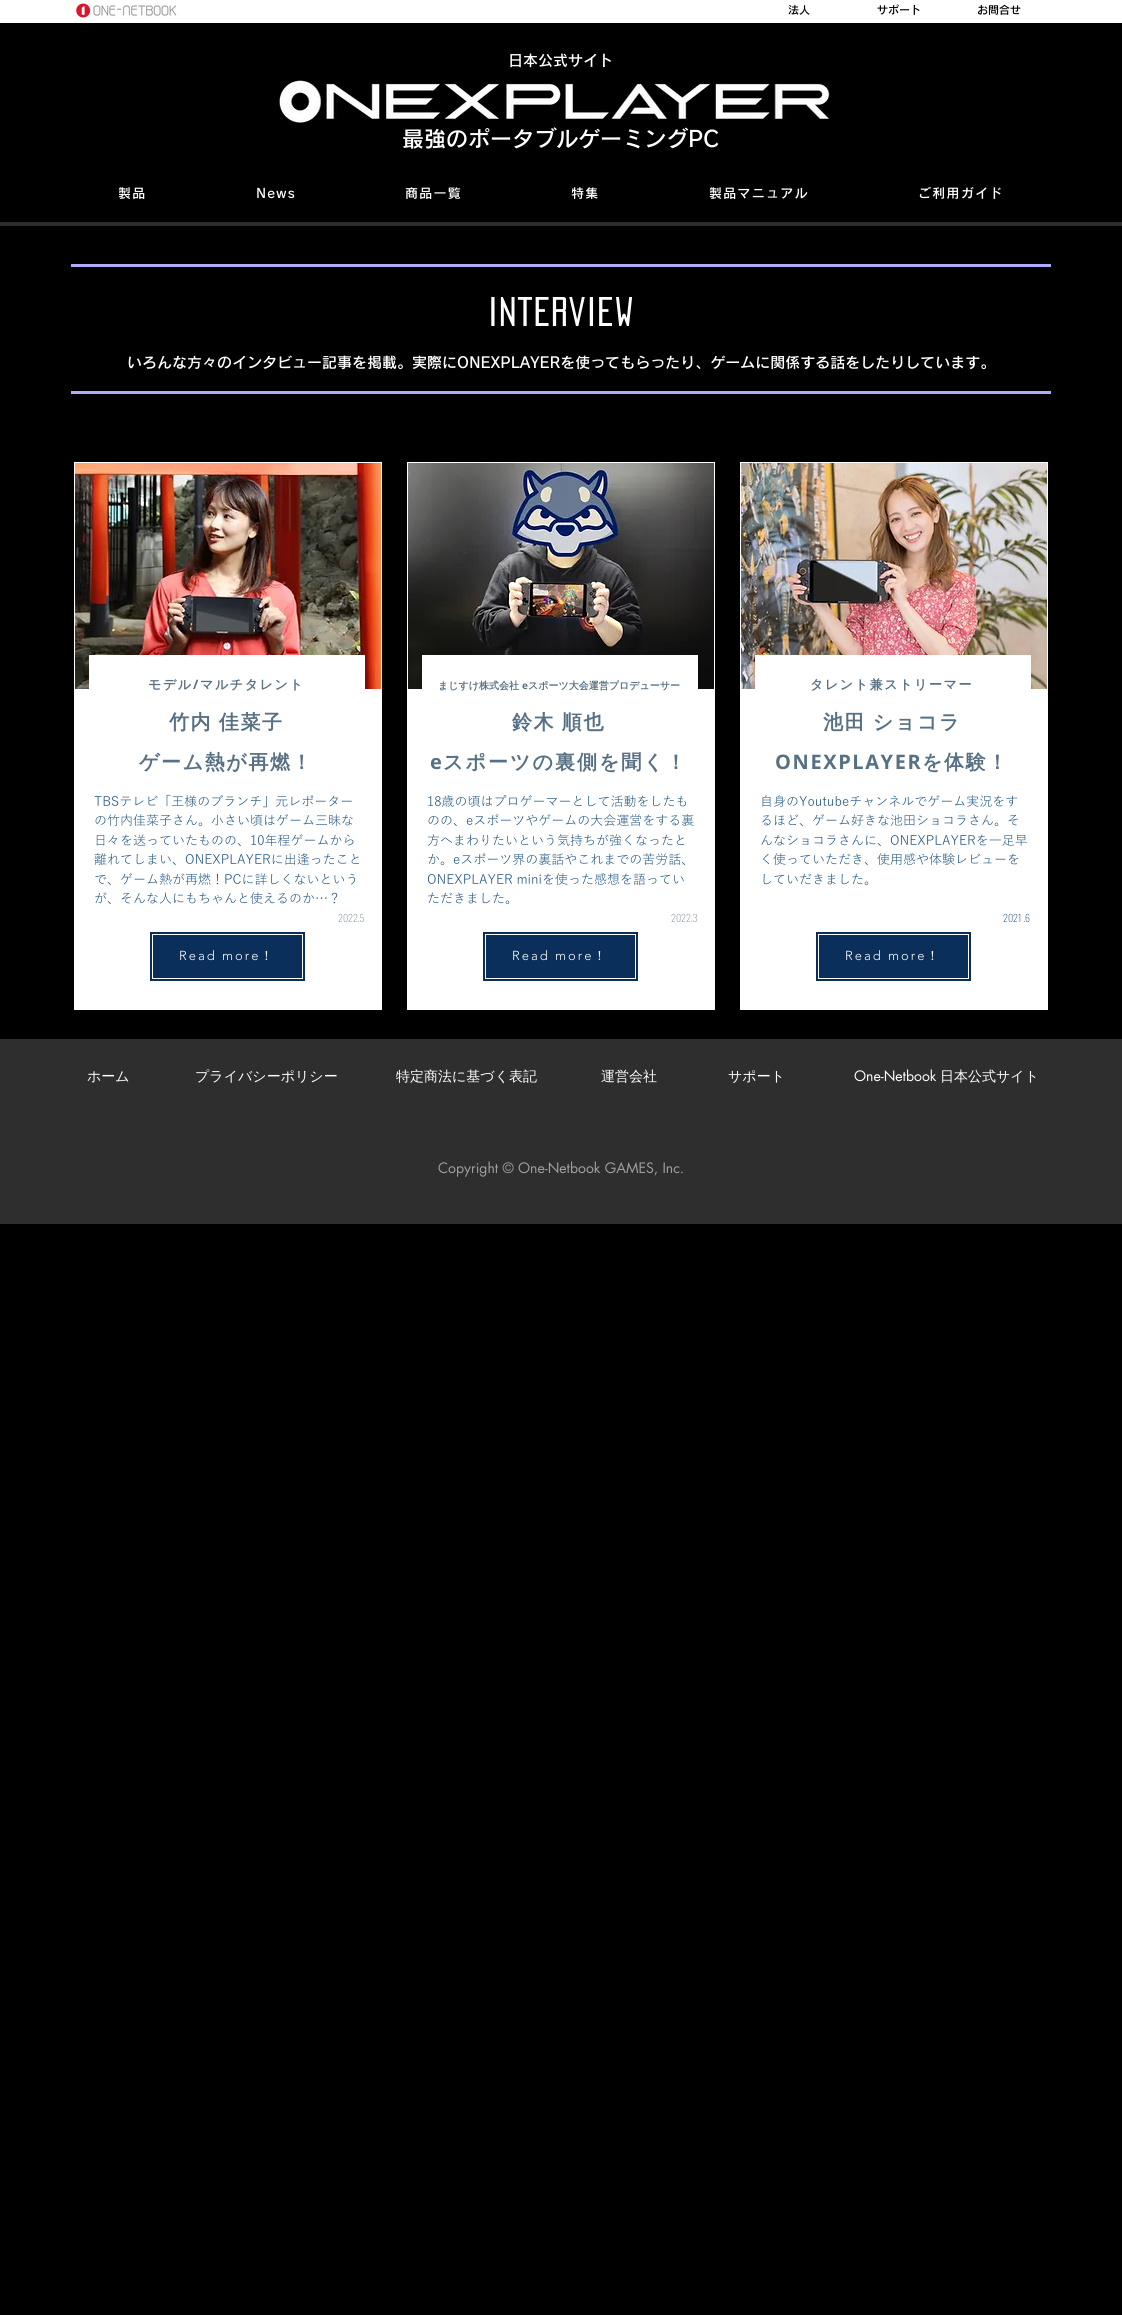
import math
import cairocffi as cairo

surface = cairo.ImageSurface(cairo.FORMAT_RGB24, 1122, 2315)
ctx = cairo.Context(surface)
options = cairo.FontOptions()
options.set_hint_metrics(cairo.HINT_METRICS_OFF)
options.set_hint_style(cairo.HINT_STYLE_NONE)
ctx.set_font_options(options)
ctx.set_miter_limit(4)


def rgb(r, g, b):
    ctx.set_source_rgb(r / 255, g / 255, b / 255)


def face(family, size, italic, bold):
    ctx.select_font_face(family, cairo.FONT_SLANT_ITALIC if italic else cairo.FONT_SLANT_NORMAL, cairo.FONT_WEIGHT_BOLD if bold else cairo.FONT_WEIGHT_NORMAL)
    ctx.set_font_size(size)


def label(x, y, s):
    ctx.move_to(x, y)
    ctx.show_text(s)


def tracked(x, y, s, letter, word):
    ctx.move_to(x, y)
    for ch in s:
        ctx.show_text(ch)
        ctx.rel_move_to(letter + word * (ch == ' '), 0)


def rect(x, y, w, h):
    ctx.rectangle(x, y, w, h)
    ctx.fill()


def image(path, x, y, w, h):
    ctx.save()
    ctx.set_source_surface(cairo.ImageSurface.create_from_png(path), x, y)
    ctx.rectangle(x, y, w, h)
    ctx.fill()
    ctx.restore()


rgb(0, 0, 0)
ctx.paint()
rgb(255, 255, 255)
rect(0, 0, 1122, 23)
image('image0.png', 76, 3, 101, 15)
face('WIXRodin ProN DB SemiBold', 11, 0, 0)
rgb(0, 0, 0)
label(788, 14, '法人')
label(877, 14, 'サポート')
label(977, 14, 'お問合せ')
face('WIXRodin ProN DB SemiBold', 15, 0, 0)
rgb(255, 255, 255)
label(508, 66, '日本公式サイト')
image('image1.png', 279, 80, 551, 43)
face('WIXRodin ProN DB SemiBold', 22, 0, 0)
label(402, 147, '最強のポータブルゲーミングPC')
face('WIXRodin ProN DB SemiBold', 13, 0, 0)
tracked(118, 198, '製品', 1.25, 0)
tracked(256, 198, 'News', 1.25, 0)
tracked(405, 198, '商品一覧', 1.25, 0)
tracked(571, 198, '特集', 1.25, 0)
tracked(709, 198, '製品マニュアル', 1.25, 0)
tracked(918, 198, 'ご利用ガイド', 1.25, 0)
rgb(47, 46, 46)
rect(0, 222, 1122, 4)
rgb(175, 172, 251)
rect(71, 264, 980, 3)
face('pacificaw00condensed', 35, 0, 1)
rgb(255, 255, 255)
tracked(488, 326, 'interview', 1.75, 0)
face('WIXRodin ProN DB SemiBold', 15, 0, 0)
label(127, 368, 'いろんな方々のインタビュー記事を掲載。実際にONEXPLAYERを使ってもらったり、ゲームに関係する話をしたりしています。')
rgb(175, 172, 251)
rect(71, 391, 980, 3)
rgb(255, 255, 255)
rect(74, 462, 308, 548)
image('image2.png', 75, 463, 306, 226)
rect(89, 655, 276, 34)
face('WenQuanYi Zen Hei', 13, 0, 1)
rgb(87, 112, 131)
tracked(148, 689, 'モデル', 1.6, 0)
face('Open Sans', 13, 0, 1)
tracked(193, 689, '/', 1.6, 0)
face('WenQuanYi Zen Hei', 13, 0, 1)
tracked(200, 689, 'マルチタレント', 1.6, 0)
face('WenQuanYi Zen Hei', 20, 0, 1)
tracked(169, 729, '竹内 佳菜子', 1.6, -1)
tracked(139, 769, 'ゲーム熱が再燃！', 1.6, 0)
face('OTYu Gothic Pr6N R', 13, 0, 0)
rgb(29, 81, 125)
label(94, 806, 'TBSテレビ「王様のブランチ」元レポーター')
label(94, 825, 'の竹内佳菜子さん。小さい頃はゲーム三昧な')
label(94, 845, '日々を送っていたものの、10年程ゲームから')
label(94, 864, '離れてしまい、ONEXPLAYERに出逢ったこと')
label(94, 884, 'で、ゲーム熱が再燃！PCに詳しくないという')
label(94, 903, 'が、そんな人にもちゃんと使えるのか…？')
face('Oswald ExtraLight', 10, 0, 0)
rgb(126, 142, 156)
label(338, 922, '2022.5')
rgb(11, 47, 91)
rect(150, 932, 155, 49)
ctx.rectangle(152.5, 934.5, 150, 44)
rgb(255, 255, 255)
ctx.set_line_width(1)
ctx.stroke()
face('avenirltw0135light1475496 Light', 13, 0, 0)
tracked(179, 960, 'Read more', 2, 0)
face('WenQuanYi Zen Hei Medium', 13, 0, 0)
tracked(260, 960, '！', 2, 0)
rect(407, 462, 308, 548)
image('image3.png', 408, 463, 306, 226)
rect(422, 655, 276, 34)
face('WenQuanYi Zen Hei', 10, 0, 1)
rgb(87, 112, 131)
label(438, 689, 'まじすけ株式会社')
face('Open Sans', 10, 0, 1)
label(522, 689, 'e')
face('WenQuanYi Zen Hei', 10, 0, 1)
label(528, 689, 'スポーツ大会運営プロデューサー')
face('WenQuanYi Zen Hei', 20, 0, 1)
tracked(512, 729, '鈴木 順也', 1.6, -1)
face('Open Sans', 20, 0, 1)
tracked(430, 769, 'e', 2, 0)
face('WenQuanYi Zen Hei', 20, 0, 1)
tracked(443, 769, 'スポーツの裏側を聞く！', 2, 0)
face('OTYu Gothic Pr6N R', 13, 0, 0)
rgb(29, 81, 125)
label(427, 806, '18歳の頃はプロゲーマーとして活動をしたも')
label(427, 825, 'のの、eスポーツやゲームの大会運営をする裏')
label(427, 845, '方へまわりたいという気持ちが強くなったと')
label(427, 864, 'か。eスポーツ界の裏話やこれまでの苦労話、')
label(427, 884, 'ONEXPLAYER miniを使った感想を語ってい')
label(427, 903, 'ただきました。')
face('Oswald ExtraLight', 10, 0, 0)
rgb(126, 142, 156)
label(671, 922, '2022.3')
rgb(11, 47, 91)
rect(483, 932, 155, 49)
ctx.rectangle(485.5, 934.5, 150, 44)
rgb(255, 255, 255)
ctx.stroke()
face('avenirltw0135light1475496 Light', 13, 0, 0)
tracked(512, 960, 'Read more', 2, 0)
face('WenQuanYi Zen Hei Medium', 13, 0, 0)
tracked(593, 960, '！', 2, 0)
rect(740, 462, 308, 548)
image('image4.png', 741, 463, 306, 226)
rect(755, 655, 276, 34)
face('WenQuanYi Zen Hei', 13, 0, 1)
rgb(87, 112, 131)
tracked(810, 689, 'タレント兼ストリーマー', 1.6, 0)
face('WenQuanYi Zen Hei', 20, 0, 1)
tracked(823, 729, '池田 ショコラ', 1.6, -1)
face('Open Sans', 20, 0, 1)
tracked(775, 769, 'ONEXPLAYER', 1.6, 0)
face('WenQuanYi Zen Hei', 20, 0, 1)
tracked(922, 769, 'を体験！', 1.6, 0)
face('OTYu Gothic Pr6N R', 13, 0, 0)
rgb(29, 81, 125)
label(760, 806, '自身のYoutubeチャンネルでゲーム実況をす')
label(760, 825, 'るほど、ゲーム好きな池田ショコラさん。そ')
label(760, 845, 'んなショコラさんに、ONEXPLAYERを一足早')
label(760, 864, 'く使っていただき、使用感や体験レビューを')
label(760, 884, 'していだきました。')
face('Oswald ExtraLight', 10, 0, 0)
label(1003, 922, '2021 .6')
rgb(11, 47, 91)
rect(816, 932, 155, 49)
ctx.rectangle(818.5, 934.5, 150, 44)
rgb(255, 255, 255)
ctx.stroke()
face('avenirltw0135light1475496 Light', 13, 0, 0)
tracked(845, 960, 'Read more', 2, 0)
face('WenQuanYi Zen Hei Medium', 13, 0, 0)
tracked(926, 960, '！', 2, 0)
rgb(47, 46, 46)
rect(0, 1039, 1122, 185)
face('WenQuanYi Zen Hei Medium', 14, 0, 0)
rgb(255, 255, 255)
label(87, 1081, 'ホーム')
label(195, 1081, 'プライバシーポリシー')
label(396, 1081, '特定商法に基づく表記')
label(601, 1081, '運営会社')
label(728, 1081, 'サポート')
face('futura', 14, 0, 0)
label(854, 1081, 'One-Netbook')
face('WenQuanYi Zen Hei Medium', 14, 0, 0)
label(940, 1081, '日本公式サイト')
face('futura', 14, 0, 0)
rgb(160, 160, 159)
label(438, 1173, 'Copyright © One-Netbook GAMES, Inc.')
surface.write_to_png('render.png')
